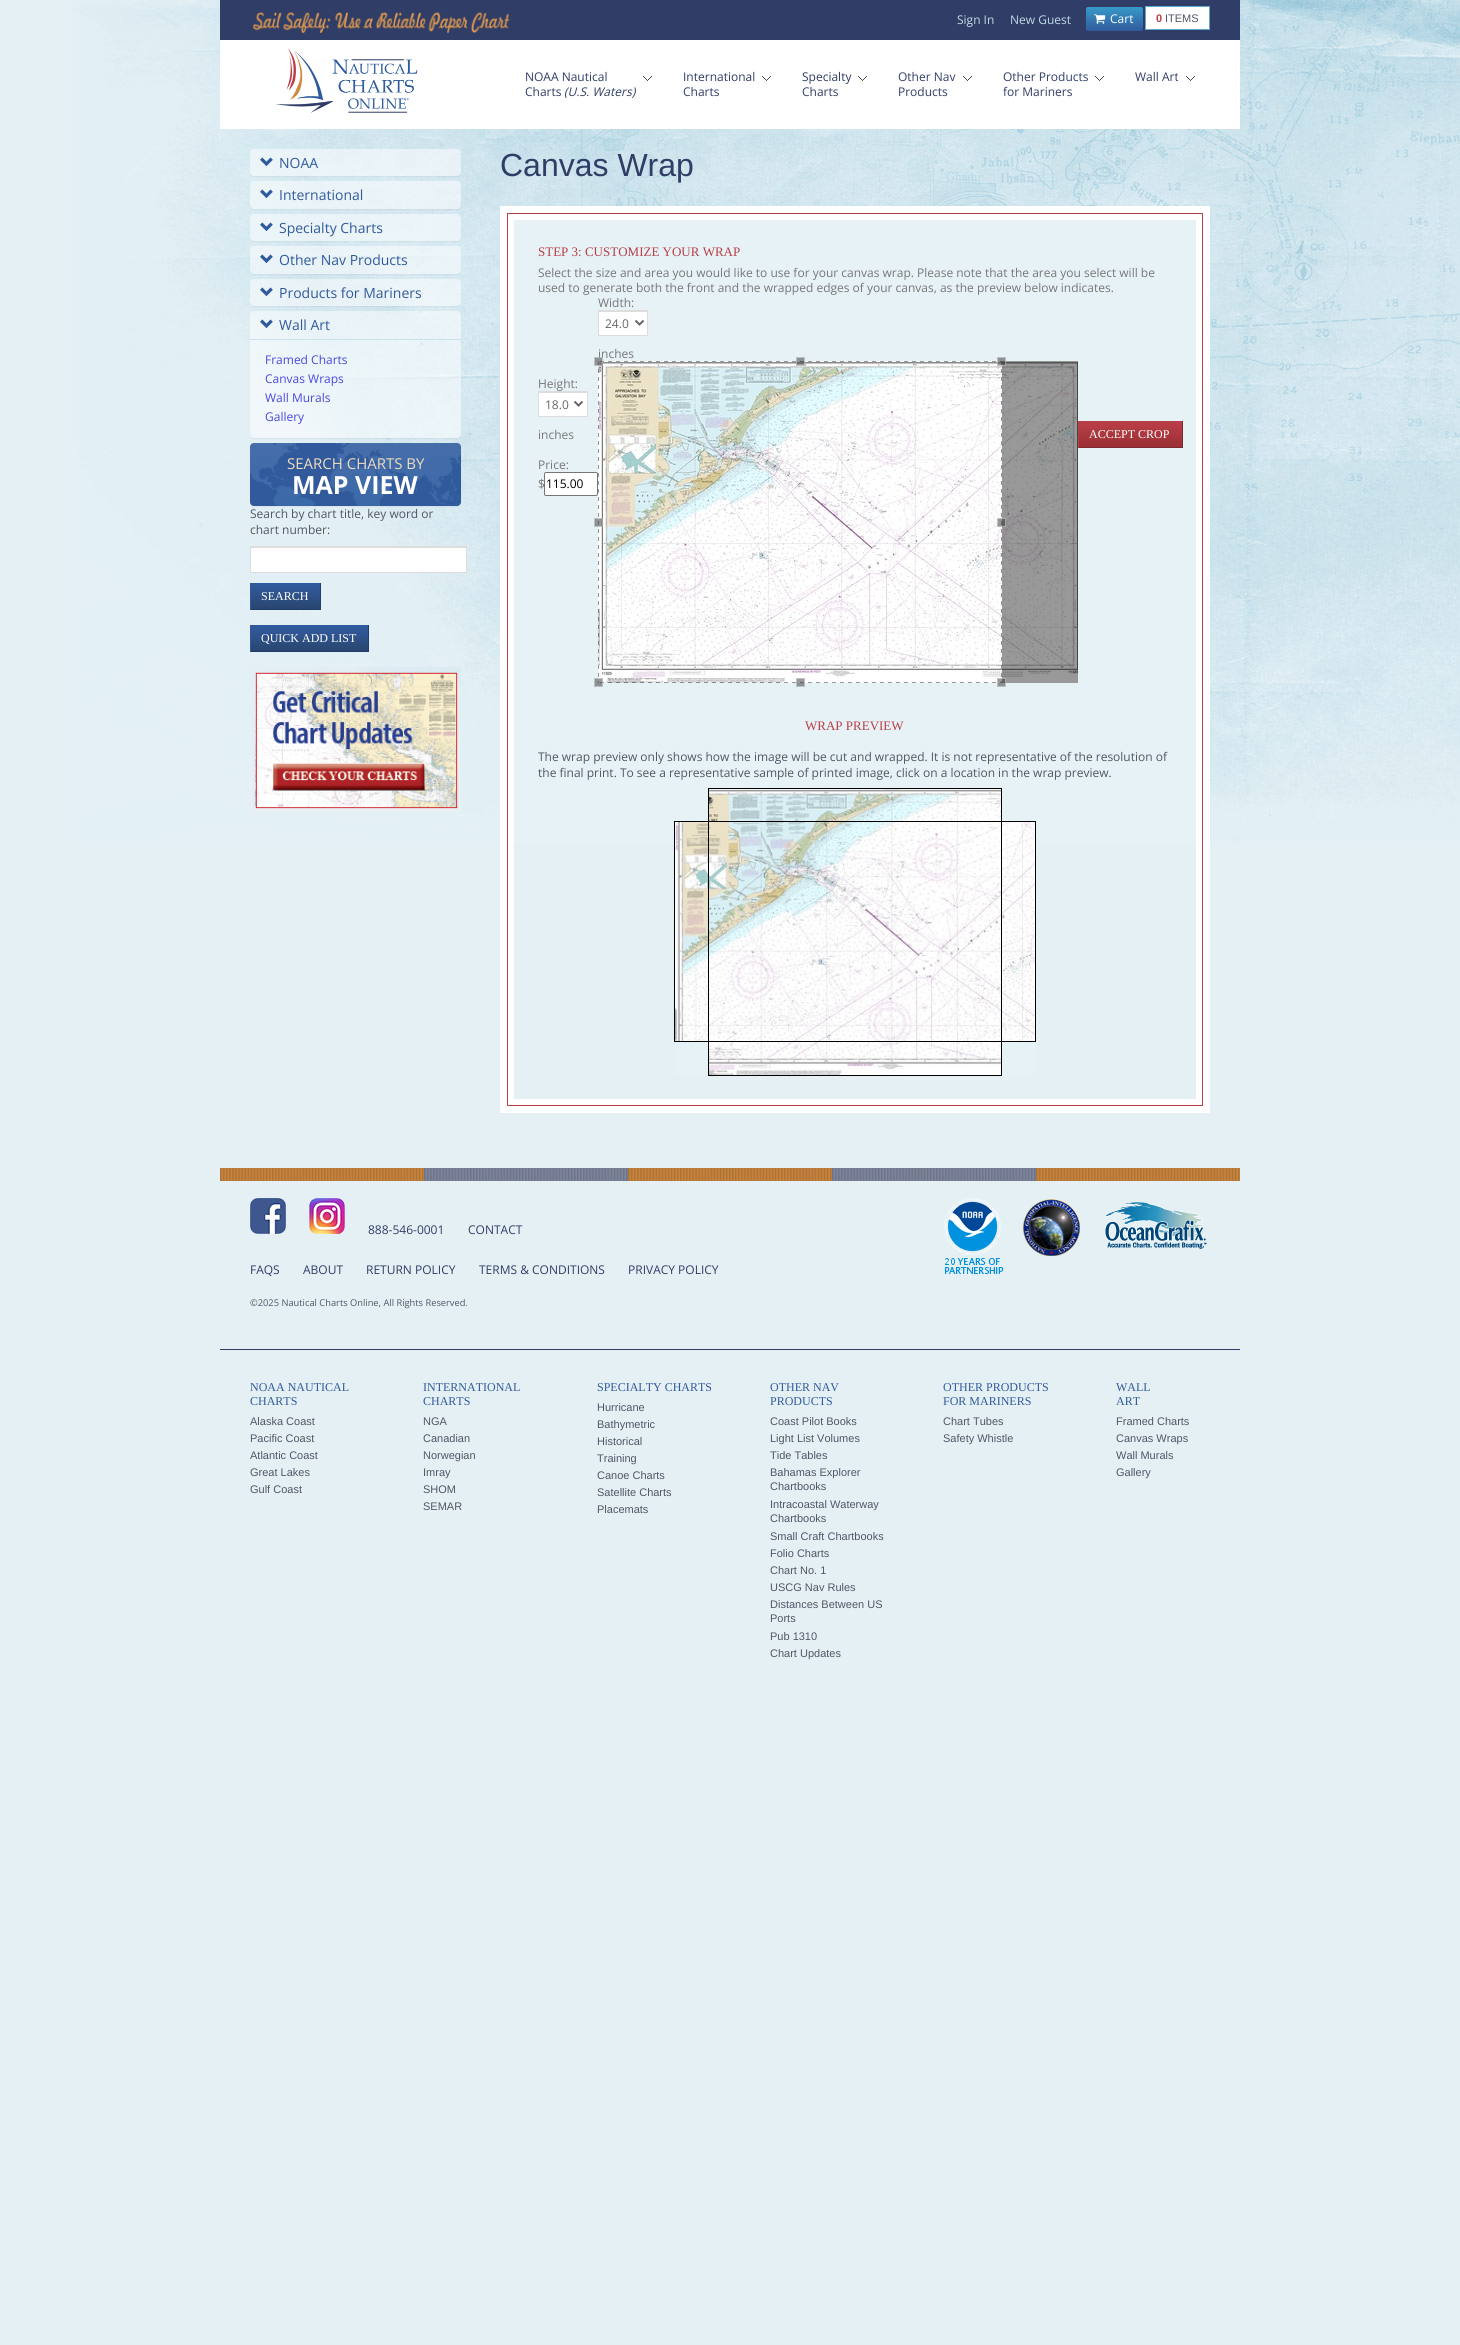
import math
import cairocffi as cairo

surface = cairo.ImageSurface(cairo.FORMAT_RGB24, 1460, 2345)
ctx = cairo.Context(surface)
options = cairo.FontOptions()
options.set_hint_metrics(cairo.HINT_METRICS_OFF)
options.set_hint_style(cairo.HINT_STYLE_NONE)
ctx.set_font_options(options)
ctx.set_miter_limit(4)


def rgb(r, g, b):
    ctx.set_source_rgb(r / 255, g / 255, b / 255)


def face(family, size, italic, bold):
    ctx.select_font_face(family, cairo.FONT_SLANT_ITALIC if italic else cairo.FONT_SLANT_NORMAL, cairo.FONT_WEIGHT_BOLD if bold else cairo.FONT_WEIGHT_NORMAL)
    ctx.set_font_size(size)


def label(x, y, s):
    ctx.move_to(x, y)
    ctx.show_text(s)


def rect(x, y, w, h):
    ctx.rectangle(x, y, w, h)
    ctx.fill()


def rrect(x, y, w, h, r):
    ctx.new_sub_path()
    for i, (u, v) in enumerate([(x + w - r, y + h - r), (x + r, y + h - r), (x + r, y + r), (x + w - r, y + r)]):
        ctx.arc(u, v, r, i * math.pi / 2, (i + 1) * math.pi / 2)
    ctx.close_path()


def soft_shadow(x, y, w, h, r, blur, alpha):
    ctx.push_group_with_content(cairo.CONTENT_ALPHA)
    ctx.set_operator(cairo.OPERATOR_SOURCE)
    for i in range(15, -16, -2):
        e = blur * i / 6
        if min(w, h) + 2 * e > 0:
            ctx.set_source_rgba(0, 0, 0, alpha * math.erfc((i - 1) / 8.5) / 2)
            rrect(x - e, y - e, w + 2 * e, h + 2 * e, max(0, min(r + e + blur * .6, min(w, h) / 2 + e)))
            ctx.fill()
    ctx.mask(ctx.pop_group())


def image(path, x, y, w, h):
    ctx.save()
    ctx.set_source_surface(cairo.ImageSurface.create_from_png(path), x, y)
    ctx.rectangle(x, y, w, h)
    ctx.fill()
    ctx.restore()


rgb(229, 240, 245)
ctx.paint()
image('image0.png', 72, 0, 1388, 843)
rgb(48, 61, 102)
rect(220, 0, 1020, 40)
image('image1.png', 252, 12, 258, 22)
face('Open Sans', 12, 0, 0)
rgb(189, 219, 230)
label(957, 24, 'Sign In')
label(1010, 24, 'New Guest')
gradient = cairo.LinearGradient(1115, 7, 1115, 31)
gradient.add_color_stop_rgba(0, 0.212, 0.604, 0.788, 1)
gradient.add_color_stop_rgba(1, 0.192, 0.353, 0.612, 1)
ctx.set_source(gradient)
rrect(1086, 7, 57, 24, 2)
ctx.fill()
image('image2.png', 1094, 14, 12, 10)
rgb(255, 255, 255)
label(1110, 23, 'Cart')
ctx.rectangle(1145.5, 6.5, 64, 23)
ctx.fill_preserve()
rgb(98, 168, 205)
ctx.set_line_width(1)
ctx.stroke()
face('Liberation Sans', 11, 0, 1)
rgb(184, 62, 72)
label(1156, 22, '0')
face('Liberation Sans', 11, 0, 0)
rgb(81, 86, 102)
label(1165, 22, 'ITEMS')
rgb(255, 255, 255)
rect(220, 40, 1020, 89)
image('image3.png', 275, 48, 143, 65)
image('image4.png', 643, 76, 9, 5)
face('Open Sans', 12, 0, 0)
rgb(48, 61, 102)
label(525, 81, 'NOAA Nautical')
label(525, 96, 'Charts')
face('Open Sans', 12, 1, 0)
label(564, 96, '(U.S. Waters)')
image('image4.png', 762, 76, 9, 5)
face('Open Sans', 12, 0, 0)
label(683, 81, 'International')
label(683, 96, 'Charts')
image('image4.png', 858, 76, 9, 5)
label(802, 81, 'Specialty')
label(802, 96, 'Charts')
image('image4.png', 963, 76, 9, 5)
label(898, 81, 'Other Nav')
label(898, 96, 'Products')
image('image4.png', 1095, 76, 9, 5)
label(1003, 81, 'Other Products')
label(1003, 96, 'for Mariners')
image('image4.png', 1186, 76, 9, 5)
label(1135, 81, 'Wall Art')
ctx.save()
ctx.set_fill_rule(cairo.FILL_RULE_EVEN_ODD)
ctx.new_path()
ctx.move_to(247, 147)
ctx.line_to(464, 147)
ctx.line_to(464, 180)
ctx.line_to(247, 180)
ctx.close_path()
ctx.move_to(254, 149)
ctx.line_to(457, 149)
ctx.curve_to(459, 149, 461, 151, 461, 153)
ctx.line_to(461, 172)
ctx.curve_to(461, 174, 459, 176, 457, 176)
ctx.line_to(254, 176)
ctx.curve_to(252, 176, 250, 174, 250, 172)
ctx.line_to(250, 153)
ctx.curve_to(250, 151, 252, 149, 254, 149)
ctx.close_path()
ctx.clip()
rgb(0, 0, 0)
soft_shadow(250, 150, 211, 27, 4, 0.5, 0.05)
ctx.restore()
ctx.set_source_rgba(1, 1, 1, 0.5)
rrect(250, 149, 211, 27, 4)
ctx.fill()
image('image5.png', 260, 157, 13, 10)
face('Open Sans', 14, 0, 0)
rgb(49, 90, 156)
label(279, 168, 'NOAA')
ctx.save()
ctx.set_fill_rule(cairo.FILL_RULE_EVEN_ODD)
ctx.new_path()
ctx.move_to(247, 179)
ctx.line_to(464, 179)
ctx.line_to(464, 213)
ctx.line_to(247, 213)
ctx.close_path()
ctx.move_to(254, 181)
ctx.line_to(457, 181)
ctx.curve_to(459, 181, 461, 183, 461, 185)
ctx.line_to(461, 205)
ctx.curve_to(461, 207, 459, 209, 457, 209)
ctx.line_to(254, 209)
ctx.curve_to(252, 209, 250, 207, 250, 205)
ctx.line_to(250, 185)
ctx.curve_to(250, 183, 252, 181, 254, 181)
ctx.close_path()
ctx.clip()
rgb(0, 0, 0)
soft_shadow(250, 182, 211, 28, 4, 0.5, 0.05)
ctx.restore()
ctx.set_source_rgba(1, 1, 1, 0.5)
rrect(250, 181, 211, 28, 4)
ctx.fill()
image('image6.png', 260, 189, 13, 10)
rgb(49, 90, 156)
label(279, 200, 'International')
ctx.save()
ctx.set_fill_rule(cairo.FILL_RULE_EVEN_ODD)
ctx.new_path()
ctx.move_to(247, 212)
ctx.line_to(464, 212)
ctx.line_to(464, 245)
ctx.line_to(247, 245)
ctx.close_path()
ctx.move_to(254, 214)
ctx.line_to(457, 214)
ctx.curve_to(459, 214, 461, 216, 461, 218)
ctx.line_to(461, 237)
ctx.curve_to(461, 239, 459, 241, 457, 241)
ctx.line_to(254, 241)
ctx.curve_to(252, 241, 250, 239, 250, 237)
ctx.line_to(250, 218)
ctx.curve_to(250, 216, 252, 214, 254, 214)
ctx.close_path()
ctx.clip()
rgb(0, 0, 0)
soft_shadow(250, 215, 211, 27, 4, 0.5, 0.05)
ctx.restore()
ctx.set_source_rgba(1, 1, 1, 0.5)
rrect(250, 214, 211, 27, 4)
ctx.fill()
image('image7.png', 260, 222, 13, 10)
rgb(49, 90, 156)
label(279, 233, 'Specialty Charts')
ctx.save()
ctx.set_fill_rule(cairo.FILL_RULE_EVEN_ODD)
ctx.new_path()
ctx.move_to(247, 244)
ctx.line_to(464, 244)
ctx.line_to(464, 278)
ctx.line_to(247, 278)
ctx.close_path()
ctx.move_to(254, 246)
ctx.line_to(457, 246)
ctx.curve_to(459, 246, 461, 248, 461, 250)
ctx.line_to(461, 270)
ctx.curve_to(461, 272, 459, 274, 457, 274)
ctx.line_to(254, 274)
ctx.curve_to(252, 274, 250, 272, 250, 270)
ctx.line_to(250, 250)
ctx.curve_to(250, 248, 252, 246, 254, 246)
ctx.close_path()
ctx.clip()
rgb(0, 0, 0)
soft_shadow(250, 247, 211, 28, 4, 0.5, 0.05)
ctx.restore()
ctx.set_source_rgba(1, 1, 1, 0.5)
rrect(250, 246, 211, 28, 4)
ctx.fill()
image('image8.png', 260, 254, 13, 10)
rgb(49, 90, 156)
label(279, 265, 'Other Nav Products')
ctx.save()
ctx.set_fill_rule(cairo.FILL_RULE_EVEN_ODD)
ctx.new_path()
ctx.move_to(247, 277)
ctx.line_to(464, 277)
ctx.line_to(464, 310)
ctx.line_to(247, 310)
ctx.close_path()
ctx.move_to(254, 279)
ctx.line_to(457, 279)
ctx.curve_to(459, 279, 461, 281, 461, 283)
ctx.line_to(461, 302)
ctx.curve_to(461, 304, 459, 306, 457, 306)
ctx.line_to(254, 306)
ctx.curve_to(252, 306, 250, 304, 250, 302)
ctx.line_to(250, 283)
ctx.curve_to(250, 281, 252, 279, 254, 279)
ctx.close_path()
ctx.clip()
rgb(0, 0, 0)
soft_shadow(250, 280, 211, 27, 4, 0.5, 0.05)
ctx.restore()
ctx.set_source_rgba(1, 1, 1, 0.5)
rrect(250, 279, 211, 27, 4)
ctx.fill()
image('image9.png', 260, 287, 13, 10)
rgb(49, 90, 156)
label(279, 298, 'Products for Mariners')
ctx.save()
ctx.set_fill_rule(cairo.FILL_RULE_EVEN_ODD)
ctx.new_path()
ctx.move_to(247, 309)
ctx.line_to(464, 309)
ctx.line_to(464, 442)
ctx.line_to(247, 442)
ctx.close_path()
ctx.move_to(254, 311)
ctx.line_to(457, 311)
ctx.curve_to(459, 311, 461, 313, 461, 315)
ctx.line_to(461, 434)
ctx.curve_to(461, 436, 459, 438, 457, 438)
ctx.line_to(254, 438)
ctx.curve_to(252, 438, 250, 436, 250, 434)
ctx.line_to(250, 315)
ctx.curve_to(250, 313, 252, 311, 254, 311)
ctx.close_path()
ctx.clip()
rgb(0, 0, 0)
soft_shadow(250, 312, 211, 127, 4, 0.5, 0.05)
ctx.restore()
ctx.set_source_rgba(1, 1, 1, 0.5)
rrect(250, 311, 211, 127, 4)
ctx.fill()
image('image10.png', 260, 319, 13, 10)
rgb(49, 90, 156)
label(279, 330, 'Wall Art')
rgb(203, 226, 234)
rect(250, 339, 211, 1)
face('Open Sans', 12, 0, 0)
rgb(72, 72, 224)
label(265, 364, 'Framed Charts')
label(265, 383, 'Canvas Wraps')
label(265, 402, 'Wall Murals')
label(265, 421, 'Gallery')
rgb(0, 0, 0)
soft_shadow(250, 444, 211, 63, 4, 0.5, 0.05)
rgb(49, 90, 156)
rrect(250, 443, 211, 63, 4)
ctx.fill()
image('image11.png', 250, 443, 211, 63)
face('Open Sans', 15, 0, 0)
rgb(237, 220, 190)
label(287, 469, 'SEARCH CHARTS BY')
face('Open Sans', 25, 0, 1)
rgb(255, 255, 255)
label(292, 494, 'MAP VIEW')
face('Open Sans', 12, 0, 0)
rgb(81, 86, 102)
label(250, 518, 'Search by chart title, key word or')
label(250, 534, 'chart number:')
rgb(255, 255, 255)
rect(251, 548, 215, 24)
rgb(221, 221, 221)
rect(250, 546, 217, 2)
rect(466, 546, 1, 27)
rect(250, 572, 217, 1)
rect(250, 546, 1, 27)
image('image12.png', 251, 584, 69, 25)
rgb(49, 90, 156)
rect(250, 583, 71, 1)
rgb(33, 60, 104)
rect(320, 583, 1, 27)
rect(250, 609, 71, 1)
rgb(49, 90, 156)
rect(250, 583, 1, 27)
face('Liberation Serif', 12, 0, 0)
rgb(255, 255, 255)
label(261, 600, 'SEARCH')
image('image13.png', 251, 626, 117, 25)
rgb(49, 90, 156)
rect(250, 625, 119, 1)
rgb(33, 60, 104)
rect(368, 625, 1, 27)
rect(250, 651, 119, 1)
rgb(49, 90, 156)
rect(250, 625, 1, 27)
rgb(255, 255, 255)
label(261, 642, 'QUICK ADD LIST')
image('image14.png', 250, 667, 211, 145)
face('Liberation Sans', 32, 0, 0)
rgb(48, 61, 102)
label(500, 176, 'Canvas Wrap')
rgb(231, 242, 246)
rect(514, 220, 682, 623)
ctx.rectangle(507, 213, 696, 893)
rgb(255, 255, 255)
ctx.set_line_width(14)
ctx.stroke()
ctx.rectangle(507.5, 213.5, 695, 892)
rgb(184, 62, 72)
ctx.set_line_width(1)
ctx.stroke()
face('Liberation Serif', 13, 0, 0)
label(538, 256, 'STEP 3: CUSTOMIZE YOUR WRAP')
face('Open Sans', 12, 0, 0)
rgb(119, 119, 119)
label(538, 277, 'Select the size and area you would like to use for your canvas wrap. Please note that the area you select will be')
label(538, 292, 'used to generate both the front and the wrapped edges of your canvas, as the preview below indicates.')
label(598, 307, 'Width:')
rgb(255, 255, 255)
rect(599, 312, 48, 23)
rgb(221, 221, 221)
rect(598, 310, 50, 2)
rect(647, 310, 1, 26)
rect(598, 335, 50, 1)
rect(598, 310, 1, 26)
ctx.new_path()
ctx.move_to(635.5, 320.5)
ctx.line_to(639.5, 324.5)
ctx.line_to(643.5, 320.5)
rgb(102, 102, 102)
ctx.set_line_width(2)
ctx.stroke()
label(605, 328, '24.0')
rgb(119, 119, 119)
label(598, 358, 'inches')
label(538, 388, 'Height:')
rgb(255, 255, 255)
rect(539, 393, 48, 23)
rgb(221, 221, 221)
rect(538, 391, 50, 2)
rect(587, 391, 1, 26)
rect(538, 416, 50, 1)
rect(538, 391, 1, 26)
ctx.new_path()
ctx.move_to(574.5, 401.5)
ctx.line_to(578.5, 405.5)
ctx.line_to(582.5, 401.5)
rgb(102, 102, 102)
ctx.stroke()
label(545, 409, '18.0')
rgb(119, 119, 119)
label(538, 439, 'inches')
label(538, 469, 'Price:')
label(538, 488, '$')
rgb(255, 255, 255)
rrect(544.5, 472.5, 53, 23, 1.5)
ctx.fill_preserve()
rgb(118, 118, 118)
ctx.set_line_width(1)
ctx.stroke()
rgb(0, 0, 0)
label(546, 488, '115.00')
rect(1002, 361, 76, 322)
image('image15.png', 598, 361, 404, 322)
ctx.set_source_rgba(1, 1, 1, 0.4)
rect(598, 361, 1, 305)
rect(598, 682, 185, 1)
image('image16.png', 598, 361, 1, 322)
rect(658, 361, 256, 1)
image('image17.png', 600, 361, 402, 1)
ctx.set_source_rgba(0.2, 0.2, 0.2, 0.5)
rect(594, 357, 9, 9)
ctx.rectangle(594.5, 357.5, 8, 8)
ctx.set_source_rgba(0.933, 0.933, 0.933, 0.5)
ctx.stroke()
ctx.set_source_rgba(0.2, 0.2, 0.2, 0.5)
rect(796, 357, 9, 9)
ctx.rectangle(796.5, 357.5, 8, 8)
ctx.set_source_rgba(0.933, 0.933, 0.933, 0.5)
ctx.stroke()
image('image19.png', 600, 682, 402, 1)
ctx.set_source_rgba(1, 1, 1, 0.4)
rect(1001, 361, 1, 322)
image('image18.png', 1001, 361, 1, 322)
image('image20.png', 1002, 361, 76, 322)
ctx.set_source_rgba(0.2, 0.2, 0.2, 0.5)
rect(997, 357, 9, 9)
ctx.rectangle(997.5, 357.5, 8, 8)
ctx.set_source_rgba(0.933, 0.933, 0.933, 0.5)
ctx.stroke()
ctx.set_source_rgba(0.2, 0.2, 0.2, 0.5)
rect(594, 518, 9, 9)
ctx.rectangle(594.5, 518.5, 8, 8)
ctx.set_source_rgba(0.933, 0.933, 0.933, 0.5)
ctx.stroke()
ctx.set_source_rgba(0.2, 0.2, 0.2, 0.5)
rect(997, 518, 9, 9)
ctx.rectangle(997.5, 518.5, 8, 8)
ctx.set_source_rgba(0.933, 0.933, 0.933, 0.5)
ctx.stroke()
ctx.set_source_rgba(0.2, 0.2, 0.2, 0.5)
rect(594, 678, 9, 9)
ctx.rectangle(594.5, 678.5, 8, 8)
ctx.set_source_rgba(0.933, 0.933, 0.933, 0.5)
ctx.stroke()
ctx.set_source_rgba(0.2, 0.2, 0.2, 0.5)
rect(796, 678, 9, 9)
ctx.rectangle(796.5, 678.5, 8, 8)
ctx.set_source_rgba(0.933, 0.933, 0.933, 0.5)
ctx.stroke()
ctx.set_source_rgba(0.2, 0.2, 0.2, 0.5)
rect(997, 678, 9, 9)
ctx.rectangle(997.5, 678.5, 8, 8)
ctx.set_source_rgba(0.933, 0.933, 0.933, 0.5)
ctx.stroke()
image('image21.png', 1079, 422, 103, 25)
rgb(184, 62, 72)
rect(1078, 421, 105, 1)
rgb(123, 41, 48)
rect(1182, 421, 1, 27)
rect(1078, 447, 105, 1)
rgb(184, 62, 72)
rect(1078, 421, 1, 27)
face('Liberation Serif', 12, 0, 0)
rgb(255, 255, 255)
label(1089, 438, 'ACCEPT CROP')
face('Liberation Serif', 13, 0, 0)
rgb(184, 62, 72)
label(805, 730, 'WRAP PREVIEW')
face('Open Sans', 12, 0, 0)
rgb(81, 86, 102)
label(538, 761, 'The wrap preview only shows how the image will be cut and wrapped. It is not representative of the resolution of')
label(538, 777, 'the final print. To see a representative sample of printed image, click on a location in the wrap preview.')
image('image22.png', 675, 789, 360, 286)
rgb(231, 242, 246)
rect(675, 789, 33, 32)
rgb(0, 0, 0)
rect(708, 788, 294, 1)
rect(1001, 821, 35, 1)
rect(1035, 821, 1, 221)
rect(708, 1041, 294, 1)
rect(1001, 1041, 1, 35)
rect(1001, 1041, 35, 1)
rect(1001, 821, 1, 221)
rect(708, 821, 294, 1)
rect(1001, 788, 1, 34)
rect(708, 1075, 294, 1)
rect(708, 1041, 1, 35)
rect(708, 821, 1, 221)
rect(674, 821, 35, 1)
rect(708, 788, 1, 34)
rgb(231, 242, 246)
rect(1002, 789, 33, 32)
rgb(0, 0, 0)
rect(674, 1041, 35, 1)
rect(674, 821, 1, 221)
rgb(231, 242, 246)
rect(675, 1042, 33, 33)
rect(1002, 1042, 33, 33)
image('image23.png', 220, 1168, 1020, 13)
image('image24.png', 250, 1198, 36, 36)
image('image25.png', 309, 1198, 36, 36)
rgb(48, 61, 102)
label(368, 1234, '888-546-0001')
label(468, 1234, 'CONTACT')
label(250, 1274, 'FAQS')
label(303, 1274, 'ABOUT')
label(366, 1274, 'RETURN POLICY')
label(479, 1274, 'TERMS & CONDITIONS')
label(628, 1274, 'PRIVACY POLICY')
face('Open Sans', 9.3, 0, 0)
rgb(81, 86, 102)
label(250, 1306, '©2025 Nautical Charts Online, All Rights Reserved.')
image('image26.png', 944, 1198, 60, 76)
image('image27.png', 1023, 1199, 57, 57)
image('image28.png', 1105, 1201, 102, 48)
rgb(48, 61, 102)
rect(220, 1349, 1020, 1)
face('Liberation Serif', 12, 0, 0)
rgb(49, 90, 156)
label(250, 1391, 'NOAA NAUTICAL')
label(250, 1405, 'CHARTS')
face('Liberation Sans', 11, 0, 0)
rgb(81, 86, 102)
label(250, 1425, 'Alaska Coast')
label(250, 1442, 'Pacific Coast')
label(250, 1459, 'Atlantic Coast')
label(250, 1476, 'Great Lakes')
label(250, 1493, 'Gulf Coast')
face('Liberation Serif', 12, 0, 0)
rgb(49, 90, 156)
label(423, 1391, 'INTERNATIONAL')
label(423, 1405, 'CHARTS')
face('Liberation Sans', 11, 0, 0)
rgb(81, 86, 102)
label(423, 1425, 'NGA')
label(423, 1442, 'Canadian')
label(423, 1459, 'Norwegian')
label(423, 1476, 'Imray')
label(423, 1493, 'SHOM')
label(423, 1510, 'SEMAR')
face('Liberation Serif', 12, 0, 0)
rgb(49, 90, 156)
label(597, 1391, 'SPECIALTY CHARTS')
face('Liberation Sans', 11, 0, 0)
rgb(81, 86, 102)
label(597, 1411, 'Hurricane')
label(597, 1428, 'Bathymetric')
label(597, 1445, 'Historical')
label(597, 1462, 'Training')
label(597, 1479, 'Canoe Charts')
label(597, 1496, 'Satellite Charts')
label(597, 1513, 'Placemats')
face('Liberation Serif', 12, 0, 0)
rgb(49, 90, 156)
label(770, 1391, 'OTHER NAV')
label(770, 1405, 'PRODUCTS')
face('Liberation Sans', 11, 0, 0)
rgb(81, 86, 102)
label(770, 1425, 'Coast Pilot Books')
label(770, 1442, 'Light List Volumes')
label(770, 1459, 'Tide Tables')
label(770, 1476, 'Bahamas Explorer')
label(770, 1490, 'Chartbooks')
label(770, 1508, 'Intracoastal Waterway')
label(770, 1522, 'Chartbooks')
label(770, 1540, 'Small Craft Chartbooks')
label(770, 1557, 'Folio Charts')
label(770, 1574, 'Chart No. 1')
label(770, 1591, 'USCG Nav Rules')
label(770, 1608, 'Distances Between US')
label(770, 1622, 'Ports')
label(770, 1640, 'Pub 1310')
label(770, 1657, 'Chart Updates')
face('Liberation Serif', 12, 0, 0)
rgb(49, 90, 156)
label(943, 1391, 'OTHER PRODUCTS')
label(943, 1405, 'FOR MARINERS')
face('Liberation Sans', 11, 0, 0)
rgb(81, 86, 102)
label(943, 1425, 'Chart Tubes')
label(943, 1442, 'Safety Whistle')
face('Liberation Serif', 12, 0, 0)
rgb(49, 90, 156)
label(1116, 1391, 'WALL')
label(1116, 1405, 'ART')
face('Liberation Sans', 11, 0, 0)
rgb(81, 86, 102)
label(1116, 1425, 'Framed Charts')
label(1116, 1442, 'Canvas Wraps')
label(1116, 1459, 'Wall Murals')
label(1116, 1476, 'Gallery')
surface.write_to_png('render.png')
